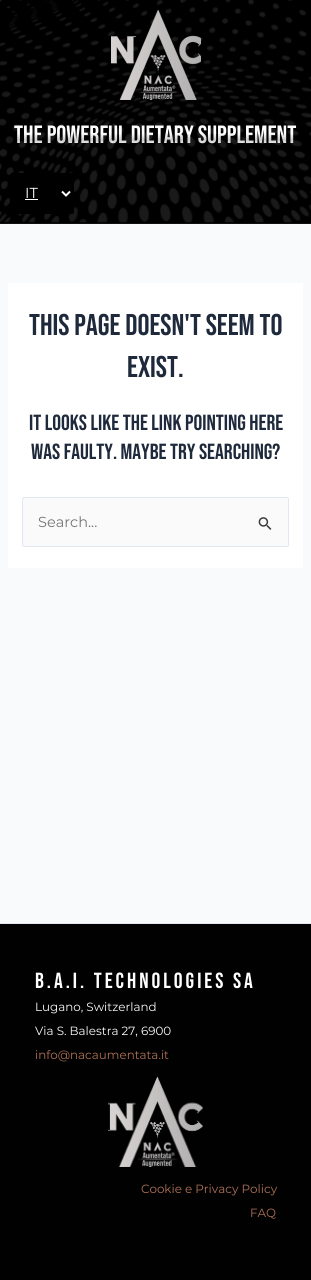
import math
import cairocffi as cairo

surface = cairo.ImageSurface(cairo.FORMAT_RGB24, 311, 1280)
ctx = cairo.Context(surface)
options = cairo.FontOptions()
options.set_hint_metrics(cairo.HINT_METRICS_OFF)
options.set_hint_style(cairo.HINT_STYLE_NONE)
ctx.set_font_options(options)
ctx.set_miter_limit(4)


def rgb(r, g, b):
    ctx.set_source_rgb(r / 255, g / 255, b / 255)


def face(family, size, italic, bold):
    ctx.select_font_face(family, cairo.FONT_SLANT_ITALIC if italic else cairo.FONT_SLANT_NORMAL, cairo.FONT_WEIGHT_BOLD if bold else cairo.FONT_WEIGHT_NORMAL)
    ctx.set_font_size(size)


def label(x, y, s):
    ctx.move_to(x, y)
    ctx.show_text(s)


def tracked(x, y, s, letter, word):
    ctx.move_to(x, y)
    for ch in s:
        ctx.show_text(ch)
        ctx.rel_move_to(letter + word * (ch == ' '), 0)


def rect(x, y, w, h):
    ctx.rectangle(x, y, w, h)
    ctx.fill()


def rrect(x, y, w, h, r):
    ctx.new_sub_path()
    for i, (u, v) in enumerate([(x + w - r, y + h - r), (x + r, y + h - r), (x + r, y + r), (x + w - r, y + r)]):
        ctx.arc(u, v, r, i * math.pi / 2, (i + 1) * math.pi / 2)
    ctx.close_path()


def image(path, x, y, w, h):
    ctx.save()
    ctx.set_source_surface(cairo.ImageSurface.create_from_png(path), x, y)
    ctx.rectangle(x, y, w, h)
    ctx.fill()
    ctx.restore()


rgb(249, 250, 251)
ctx.paint()
image('image0.png', 0, 0, 311, 224)
image('image1.png', 111, 10, 90, 90)
face('Bebas Neue', 25, 0, 0)
gradient = cairo.LinearGradient(156, 120, 156, 153)
gradient.add_color_stop_rgba(0.4, 1, 1, 1, 1)
gradient.add_color_stop_rgba(0.6, 0.8, 0.8, 0.8, 1)
gradient.add_color_stop_rgba(0.8, 1, 1, 1, 1)
ctx.set_source(gradient)
label(14, 143, 'The Powerful Dietary Supplement')
rgb(0, 0, 0)
rrect(10, 173, 64, 41, 2)
ctx.fill()
ctx.new_path()
ctx.move_to(62, 191.5)
ctx.line_to(66, 195.5)
ctx.line_to(70, 191.5)
rgb(255, 255, 255)
ctx.stroke()
face('Montserrat Thin', 14.5, 0, 0)
label(25, 198, 'IT')
rect(25, 199, 13, 1)
rect(8, 283, 295, 285)
face('Bebas Neue', 30, 0, 0)
rgb(30, 41, 59)
label(29, 335, 'This page doesn\'t seem to')
label(127, 377, 'exist.')
face('Bebas Neue', 21.9, 0, 0)
label(29, 430, 'It looks like the link pointing here')
label(31, 459, 'was faulty. Maybe try searching?')
rgb(250, 250, 250)
rrect(22.5, 497.5, 266, 49, 1.5)
ctx.fill_preserve()
rgb(226, 232, 240)
ctx.set_line_width(1)
ctx.stroke()
face('Montserrat Thin', 14.5, 0, 0)
rgb(117, 117, 117)
label(38, 527, 'Search...')
image('image2.png', 258, 517, 14, 13)
rgb(1, 1, 1)
rect(0, 924, 311, 356)
rgb(226, 232, 240)
rect(0, 923, 311, 1)
face('Bebas Neue', 21.9, 0, 0)
rgb(255, 255, 255)
tracked(35, 988, 'B.A.I. Technologies SA', 3, 0)
face('Montserrat Thin', 11.9, 0, 0)
rgb(249, 250, 251)
label(35, 1011, 'Lugano, Switzerland')
label(35, 1035, 'Via S. Balestra 27, 6900')
rgb(175, 114, 86)
label(35, 1059, 'info@nacaumentata.it')
image('image3.png', 108, 1077, 95, 90)
label(141, 1193, 'Cookie e Privacy Policy')
label(250, 1217, 'FAQ')
surface.write_to_png('render.png')
